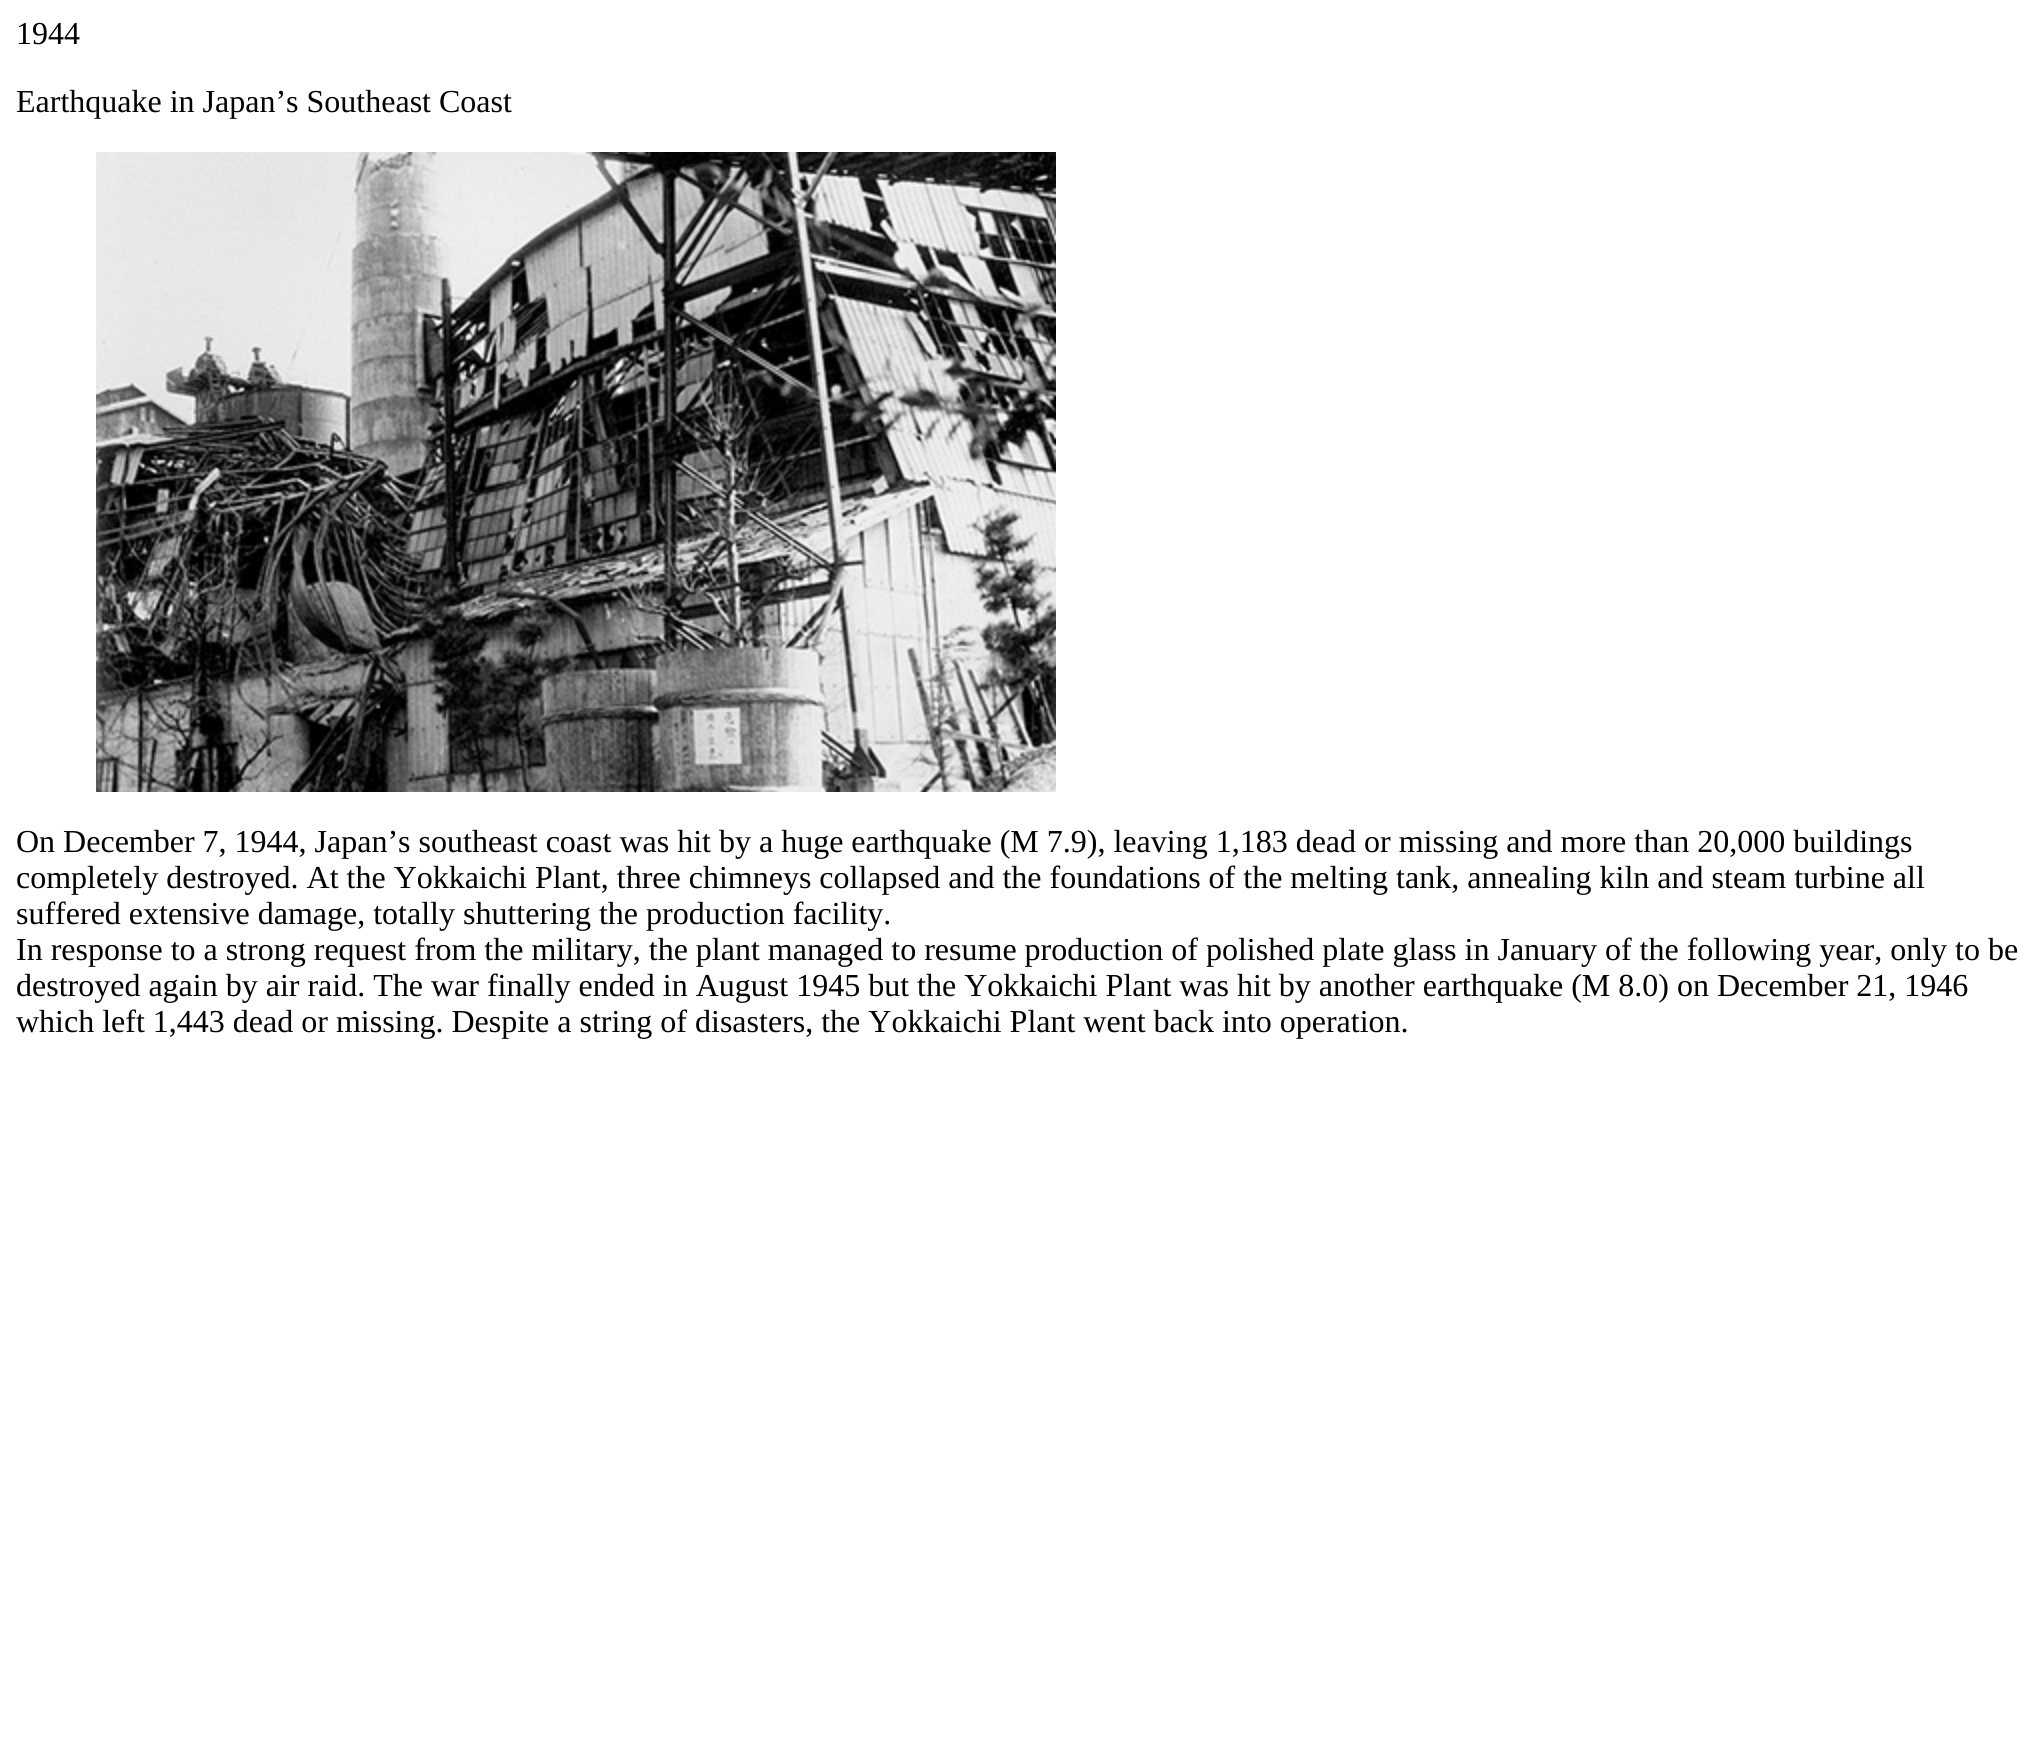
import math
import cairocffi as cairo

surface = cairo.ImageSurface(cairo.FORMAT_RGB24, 2040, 1762)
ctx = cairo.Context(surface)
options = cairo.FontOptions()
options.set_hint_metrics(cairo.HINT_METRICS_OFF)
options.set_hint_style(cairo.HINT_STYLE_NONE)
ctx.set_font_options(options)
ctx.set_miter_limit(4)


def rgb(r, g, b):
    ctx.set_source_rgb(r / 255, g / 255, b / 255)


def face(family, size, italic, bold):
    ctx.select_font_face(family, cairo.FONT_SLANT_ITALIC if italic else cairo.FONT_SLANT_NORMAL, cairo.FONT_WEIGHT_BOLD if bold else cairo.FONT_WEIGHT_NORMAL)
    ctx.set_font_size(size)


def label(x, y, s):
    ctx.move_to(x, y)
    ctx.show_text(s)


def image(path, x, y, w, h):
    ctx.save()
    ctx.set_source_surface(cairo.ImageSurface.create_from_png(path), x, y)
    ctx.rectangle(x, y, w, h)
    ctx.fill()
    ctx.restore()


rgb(255, 255, 255)
ctx.paint()
face('Liberation Serif', 32, 0, 0)
rgb(0, 0, 0)
label(16, 44, '1944')
label(16, 112, 'Earthquake in Japan’s Southeast Coast')
image('image0.png', 96, 152, 960, 640)
label(16, 852, 'On December 7, 1944, Japan’s southeast coast was hit by a huge earthquake (M 7.9), leaving 1,183 dead or missing and more than 20,000 buildings')
label(16, 888, 'completely destroyed. At the Yokkaichi Plant, three chimneys collapsed and the foundations of the melting tank, annealing kiln and steam turbine all')
label(16, 924, 'suffered extensive damage, totally shuttering the production facility.')
label(16, 960, 'In response to a strong request from the military, the plant managed to resume production of polished plate glass in January of the following year, only to be')
label(16, 996, 'destroyed again by air raid. The war finally ended in August 1945 but the Yokkaichi Plant was hit by another earthquake (M 8.0) on December 21, 1946')
label(16, 1032, 'which left 1,443 dead or missing. Despite a string of disasters, the Yokkaichi Plant went back into operation.')
surface.write_to_png('render.png')
